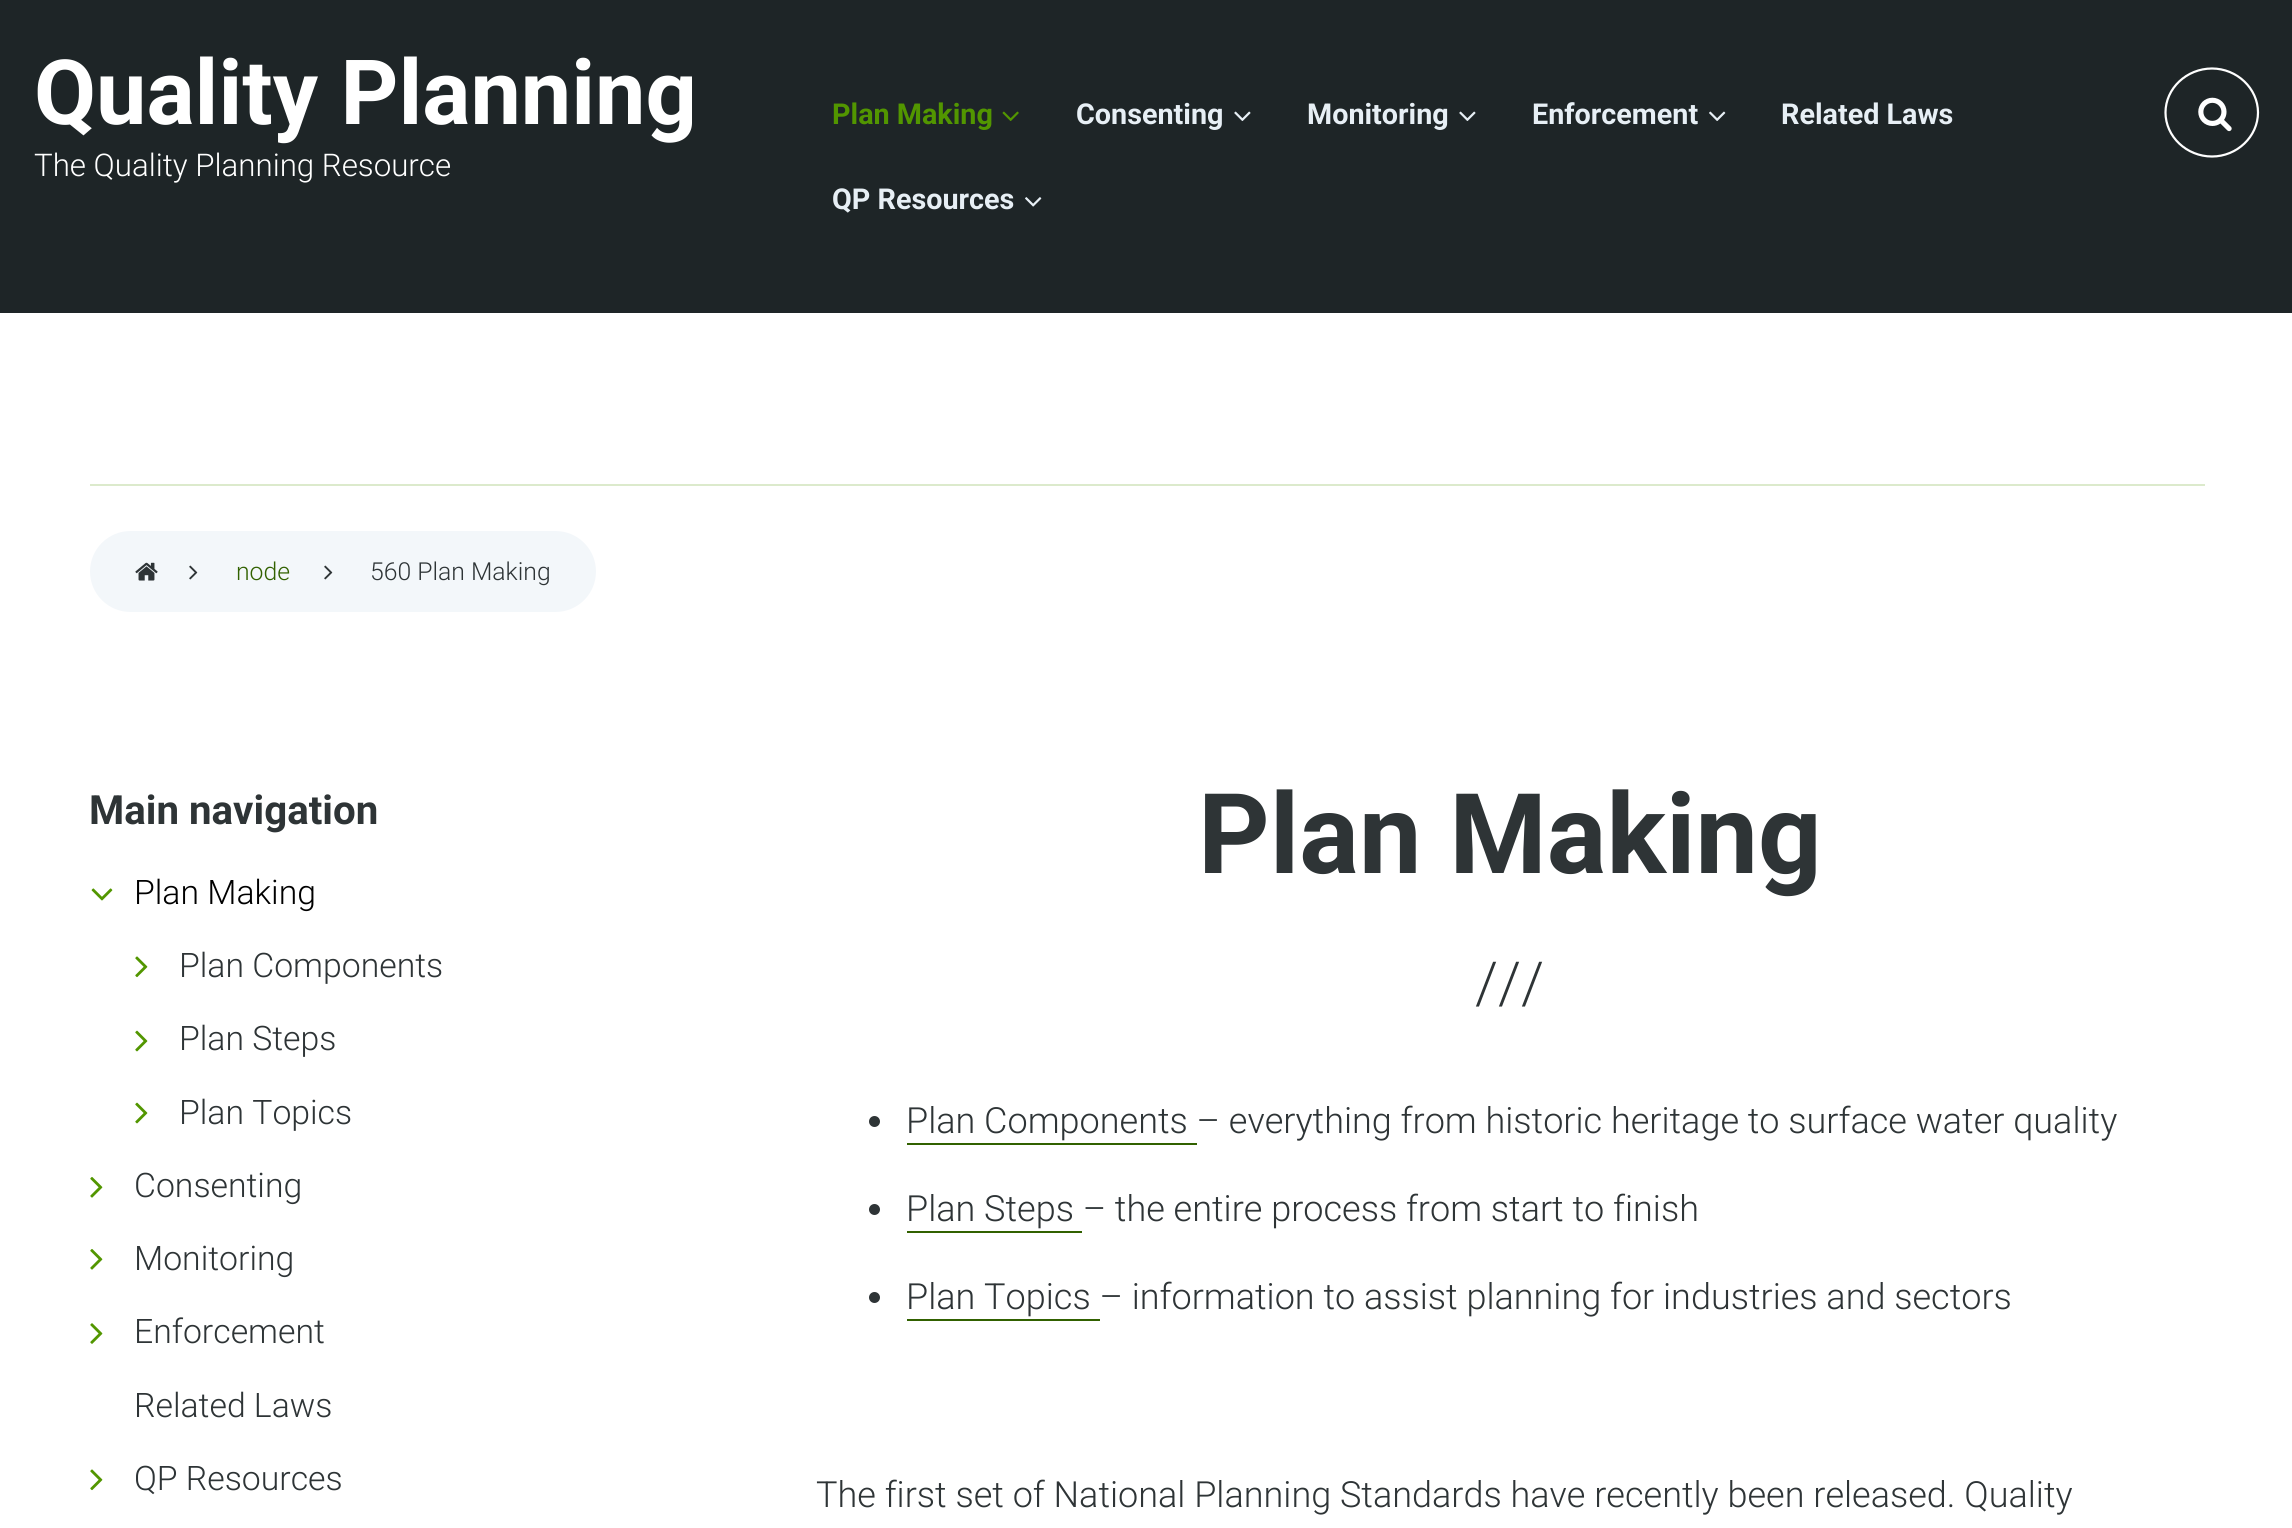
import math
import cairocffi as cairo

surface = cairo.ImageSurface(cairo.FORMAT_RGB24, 2292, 1528)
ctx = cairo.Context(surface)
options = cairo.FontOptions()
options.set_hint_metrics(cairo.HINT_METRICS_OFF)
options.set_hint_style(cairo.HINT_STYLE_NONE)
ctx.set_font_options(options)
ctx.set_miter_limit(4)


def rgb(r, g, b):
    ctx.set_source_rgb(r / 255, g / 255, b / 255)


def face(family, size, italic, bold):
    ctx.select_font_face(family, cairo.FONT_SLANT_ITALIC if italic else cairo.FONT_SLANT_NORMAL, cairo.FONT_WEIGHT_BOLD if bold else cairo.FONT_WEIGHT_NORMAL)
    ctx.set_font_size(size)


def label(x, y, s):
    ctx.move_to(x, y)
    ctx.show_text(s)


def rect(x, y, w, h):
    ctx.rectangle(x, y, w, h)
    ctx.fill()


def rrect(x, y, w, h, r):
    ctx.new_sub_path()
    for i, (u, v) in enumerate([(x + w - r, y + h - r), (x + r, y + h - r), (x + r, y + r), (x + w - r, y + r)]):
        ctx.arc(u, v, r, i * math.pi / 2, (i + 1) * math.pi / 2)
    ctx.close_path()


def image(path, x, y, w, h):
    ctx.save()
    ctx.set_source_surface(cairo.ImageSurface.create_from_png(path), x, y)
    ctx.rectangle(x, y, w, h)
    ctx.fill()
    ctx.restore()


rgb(255, 255, 255)
ctx.paint()
rgb(30, 37, 39)
rect(0, 0, 2292, 313)
face('Roboto', 90, 0, 1)
rgb(255, 255, 255)
label(34, 124, 'Quality Planning')
face('Roboto Light', 31.25, 0, 0)
label(34, 176, 'The Quality Planning Resource')
face('Roboto', 28.75, 0, 1)
rgb(82, 150, 0)
label(832, 124, 'Plan Making')
image('image0.png', 1002, 111, 17, 10)
rgb(231, 239, 245)
label(1076, 124, 'Consenting')
image('image1.png', 1234, 111, 17, 10)
label(1307, 124, 'Monitoring')
image('image1.png', 1459, 111, 17, 10)
label(1532, 124, 'Enforcement')
image('image2.png', 1709, 111, 17, 10)
label(1781, 124, 'Related Laws')
label(832, 209, 'QP Resources')
image('image3.png', 1025, 197, 17, 10)
ctx.new_path()
ctx.move_to(2212, 68.5)
ctx.curve_to(2237, 68.5, 2258, 88.5, 2258, 112.5)
ctx.curve_to(2258, 136.5, 2237, 156.5, 2212, 156.5)
ctx.curve_to(2186.5, 156.5, 2165.5, 136.5, 2165.5, 112.5)
ctx.curve_to(2165.5, 88.5, 2186.5, 68.5, 2212, 68.5)
ctx.close_path()
rgb(255, 255, 255)
ctx.set_line_width(2.2)
ctx.stroke()
image('image4.png', 2198, 97, 34, 35)
rgb(220, 234, 204)
rect(90, 484, 2115, 2)
rgb(243, 247, 250)
rrect(90, 531, 506, 81, 40.5)
ctx.fill()
image('image5.png', 135, 562, 23, 19)
image('image6.png', 189, 565, 9, 15)
face('Roboto Light', 24.75, 0, 0)
rgb(49, 97, 0)
label(236, 580, 'node')
image('image6.png', 324, 565, 9, 15)
rgb(46, 52, 54)
label(370, 580, '560 Plan Making')
face('Roboto', 40.25, 0, 1)
label(89, 824, 'Main navigation')
image('image7.png', 91, 888, 22, 13)
face('Roboto Light', 33.75, 0, 0)
rgb(0, 0, 0)
label(134, 904, 'Plan Making')
image('image8.png', 135, 956, 13, 22)
rgb(46, 52, 54)
label(179, 977, 'Plan Components')
image('image9.png', 135, 1030, 13, 22)
label(179, 1050, 'Plan Steps')
image('image9.png', 135, 1102, 13, 22)
label(179, 1124, 'Plan Topics')
image('image10.png', 90, 1177, 13, 21)
label(134, 1197, 'Consenting')
image('image10.png', 90, 1249, 13, 21)
label(134, 1270, 'Monitoring')
image('image11.png', 90, 1323, 13, 21)
label(134, 1343, 'Enforcement')
label(134, 1417, 'Related Laws')
image('image8.png', 90, 1469, 13, 22)
label(134, 1490, 'QP Resources')
face('Roboto', 111.5, 0, 1)
label(1198, 873, 'Plan Making')
face('Roboto Light', 58, 0, 0)
label(1475, 1003, '///')
ctx.new_path()
ctx.arc(874.5, 1121.5, 5.5, 0, 2 * math.pi)
ctx.fill()
face('Roboto Light', 36, 0, 0)
label(906, 1133, 'Plan Components – everything from historic heritage to surface water quality')
rgb(49, 97, 0)
rect(907, 1143, 290, 2)
rgb(46, 52, 54)
ctx.new_path()
ctx.arc(874.5, 1209.5, 5.5, 0, 2 * math.pi)
ctx.fill()
label(906, 1221, 'Plan Steps – the entire process from start to finish')
rgb(49, 97, 0)
rect(907, 1231, 175, 2)
rgb(46, 52, 54)
ctx.new_path()
ctx.arc(874.5, 1297.5, 5.5, 0, 2 * math.pi)
ctx.fill()
label(906, 1309, 'Plan Topics – information to assist planning for industries and sectors')
rgb(49, 97, 0)
rect(907, 1319, 193, 2)
rgb(46, 52, 54)
label(816, 1507, 'The first set of National Planning Standards have recently been released. Quality')
surface.write_to_png('render.png')
